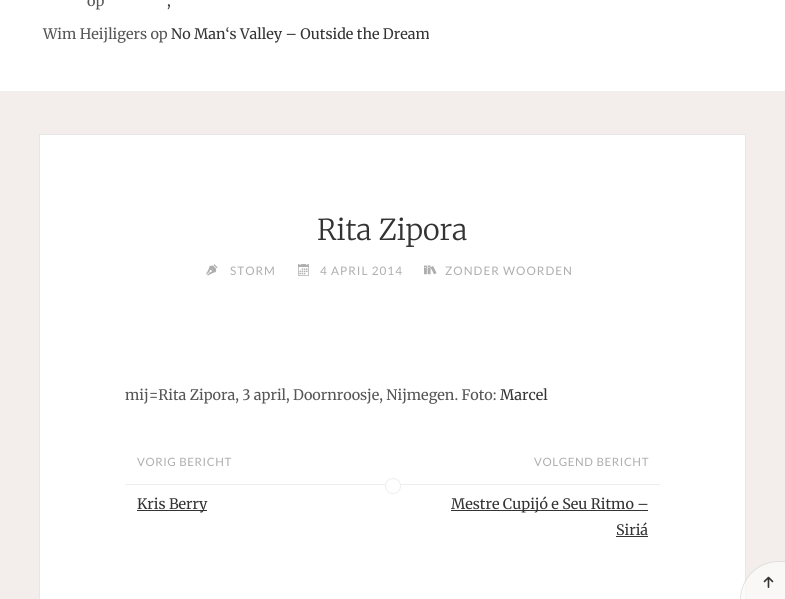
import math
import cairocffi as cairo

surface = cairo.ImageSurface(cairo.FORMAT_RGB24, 785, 599)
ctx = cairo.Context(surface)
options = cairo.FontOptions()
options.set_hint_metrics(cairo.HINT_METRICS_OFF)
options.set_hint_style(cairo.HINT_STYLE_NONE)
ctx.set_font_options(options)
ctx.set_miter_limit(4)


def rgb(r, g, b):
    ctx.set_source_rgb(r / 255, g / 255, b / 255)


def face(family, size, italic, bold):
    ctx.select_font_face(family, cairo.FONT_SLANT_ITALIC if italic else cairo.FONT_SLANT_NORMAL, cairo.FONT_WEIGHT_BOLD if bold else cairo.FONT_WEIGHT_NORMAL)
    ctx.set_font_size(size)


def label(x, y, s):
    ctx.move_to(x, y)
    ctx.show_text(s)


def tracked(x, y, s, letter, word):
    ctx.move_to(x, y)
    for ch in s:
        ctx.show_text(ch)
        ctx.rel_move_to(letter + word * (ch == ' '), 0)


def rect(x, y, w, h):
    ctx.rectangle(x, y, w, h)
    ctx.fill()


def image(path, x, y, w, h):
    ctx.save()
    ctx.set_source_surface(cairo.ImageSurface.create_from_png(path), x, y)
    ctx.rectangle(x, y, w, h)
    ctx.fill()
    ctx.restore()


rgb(243, 238, 235)
ctx.paint()
rgb(255, 255, 255)
rect(0, 0, 785, 91)
face('Merriweather', 14.4, 0, 0)
rgb(85, 85, 85)
label(87, 6, 'op')
rgb(51, 51, 51)
label(167, 6, ',')
rgb(85, 85, 85)
label(43, 39, 'Wim Heijligers op')
rgb(51, 51, 51)
label(171, 39, 'No Man‘s Valley – Outside the Dream')
rgb(255, 255, 255)
ctx.rectangle(39.5, 134.5, 706, 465)
ctx.fill_preserve()
rgb(230, 230, 230)
ctx.set_line_width(1)
ctx.stroke()
face('Merriweather Light', 28.75, 0, 0)
rgb(51, 51, 51)
label(317, 240, 'Rita Zipora')
image('image0.png', 206, 264, 12, 12)
face('Lato', 11.75, 0, 0)
rgb(174, 174, 174)
tracked(230, 275, 'STORM', 1, 0)
image('image1.png', 298, 264, 11, 12)
tracked(320, 275, '4 APRIL 2014', 1, 0)
image('image2.png', 424, 265, 13, 10)
tracked(445, 275, 'ZONDER WOORDEN', 1, 0)
face('Merriweather', 14.4, 0, 0)
rgb(85, 85, 85)
label(125, 400, 'mij=Rita Zipora, 3 april, Doornroosje, Nijmegen. Foto:')
rgb(51, 51, 51)
label(500, 400, 'Marcel')
face('Lato', 11.5, 0, 0)
rgb(174, 174, 174)
tracked(137, 466, 'VORIG BERICHT', 0.6, 0)
rgb(238, 238, 238)
rect(125, 484, 535, 1)
rgb(255, 255, 255)
ctx.new_path()
ctx.move_to(393, 478)
ctx.line_to(393, 494)
ctx.curve_to(388.5, 494, 385, 490.5, 385, 486)
ctx.curve_to(385, 481.5, 388.5, 478, 393, 478)
ctx.close_path()
ctx.fill()
ctx.save()
ctx.rectangle(125, 452, 268, 73)
ctx.clip()
ctx.arc(393, 486, 7.5, 0, 2 * math.pi)
rgb(238, 238, 238)
ctx.stroke()
ctx.restore()
rgb(51, 51, 51)
rect(137, 510, 70, 1)
face('Merriweather', 14.4, 0, 0)
label(137, 509, 'Kris Berry')
face('Lato', 11.5, 0, 0)
rgb(174, 174, 174)
tracked(534, 466, 'VOLGEND BERICHT', 0.6, 0)
rgb(255, 255, 255)
ctx.new_path()
ctx.move_to(393, 478)
ctx.curve_to(397.5, 478, 401, 481.5, 401, 486)
ctx.curve_to(401, 490.5, 397.5, 494, 393, 494)
ctx.close_path()
ctx.fill()
ctx.save()
ctx.rectangle(393, 452, 267, 99)
ctx.clip()
ctx.arc(393, 486, 7.5, 0, 2 * math.pi)
rgb(238, 238, 238)
ctx.stroke()
ctx.restore()
rgb(51, 51, 51)
rect(451, 510, 197, 1)
face('Merriweather', 14.4, 0, 0)
label(451, 509, 'Mestre Cupijó e Seu Ritmo –')
label(616, 535, 'Siriá')
rect(616, 536, 32, 1)
ctx.set_source_rgba(0.98, 0.98, 0.98, 0.8)
ctx.new_path()
ctx.move_to(779, 561)
ctx.line_to(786, 561)
ctx.line_to(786, 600)
ctx.line_to(740, 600)
ctx.curve_to(740, 578.5, 757.5, 561, 779, 561)
ctx.close_path()
ctx.fill()
ctx.new_path()
ctx.move_to(779, 561.5)
ctx.line_to(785.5, 561.5)
ctx.line_to(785.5, 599.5)
ctx.line_to(740.5, 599.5)
ctx.line_to(740.5, 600)
ctx.curve_to(740.5, 578.5, 757.5, 561.5, 779, 561.5)
ctx.close_path()
ctx.set_source_rgba(0, 0, 0, 0.1)
ctx.stroke()
image('image3.png', 763, 576, 11, 12)
surface.write_to_png('render.png')
